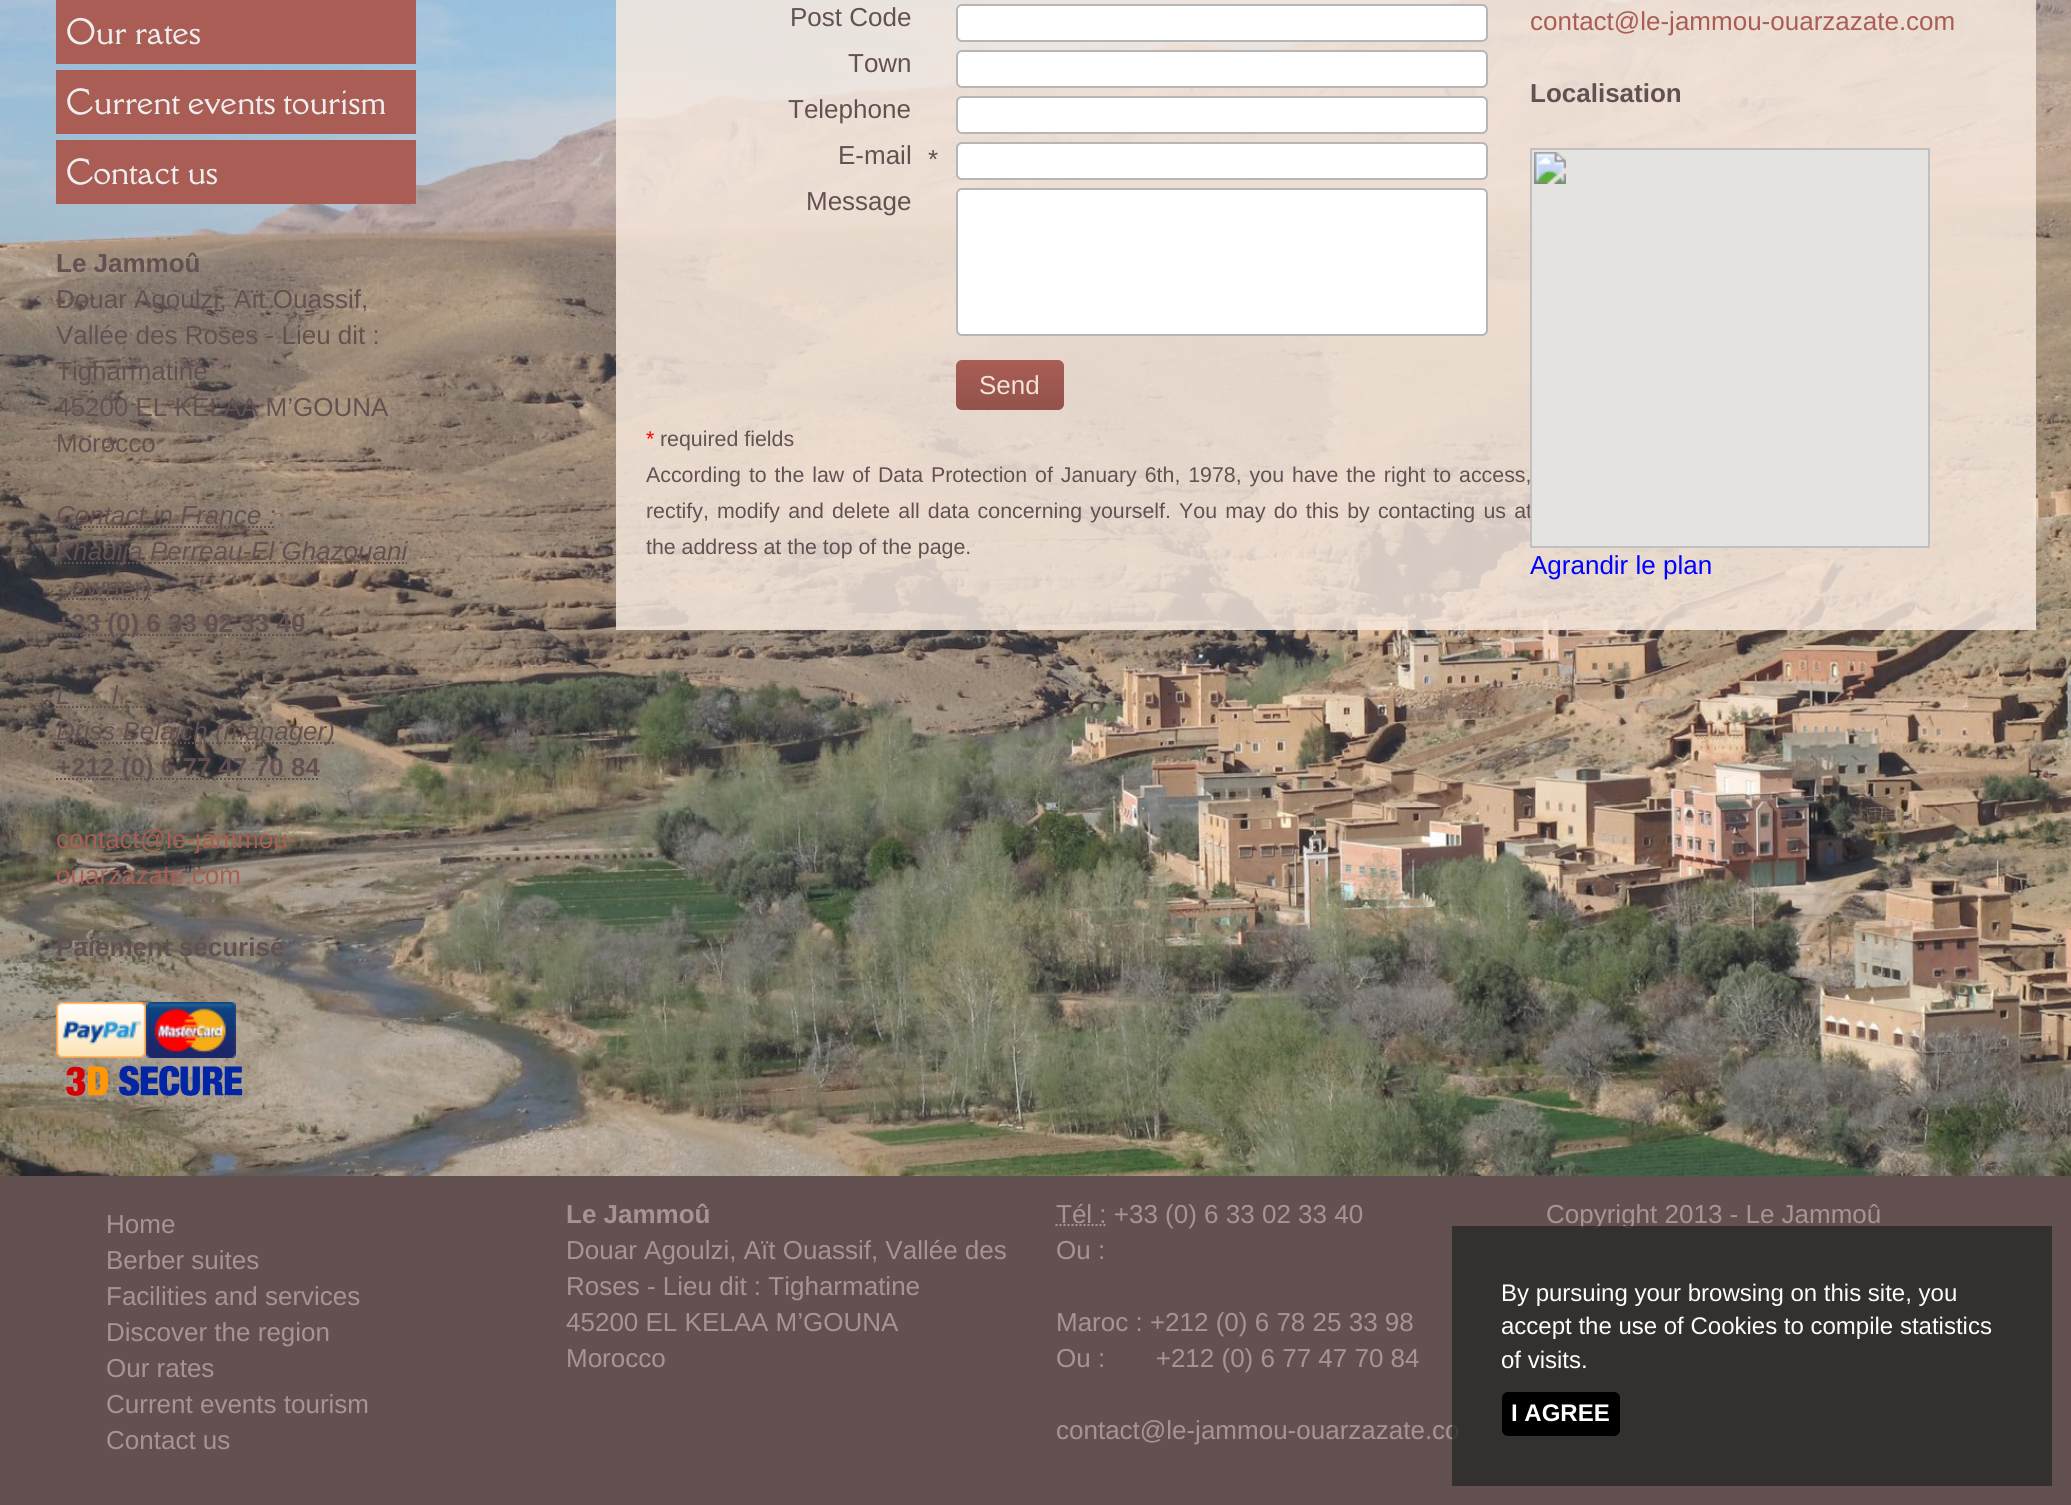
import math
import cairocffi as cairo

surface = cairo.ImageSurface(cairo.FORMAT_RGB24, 2071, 1505)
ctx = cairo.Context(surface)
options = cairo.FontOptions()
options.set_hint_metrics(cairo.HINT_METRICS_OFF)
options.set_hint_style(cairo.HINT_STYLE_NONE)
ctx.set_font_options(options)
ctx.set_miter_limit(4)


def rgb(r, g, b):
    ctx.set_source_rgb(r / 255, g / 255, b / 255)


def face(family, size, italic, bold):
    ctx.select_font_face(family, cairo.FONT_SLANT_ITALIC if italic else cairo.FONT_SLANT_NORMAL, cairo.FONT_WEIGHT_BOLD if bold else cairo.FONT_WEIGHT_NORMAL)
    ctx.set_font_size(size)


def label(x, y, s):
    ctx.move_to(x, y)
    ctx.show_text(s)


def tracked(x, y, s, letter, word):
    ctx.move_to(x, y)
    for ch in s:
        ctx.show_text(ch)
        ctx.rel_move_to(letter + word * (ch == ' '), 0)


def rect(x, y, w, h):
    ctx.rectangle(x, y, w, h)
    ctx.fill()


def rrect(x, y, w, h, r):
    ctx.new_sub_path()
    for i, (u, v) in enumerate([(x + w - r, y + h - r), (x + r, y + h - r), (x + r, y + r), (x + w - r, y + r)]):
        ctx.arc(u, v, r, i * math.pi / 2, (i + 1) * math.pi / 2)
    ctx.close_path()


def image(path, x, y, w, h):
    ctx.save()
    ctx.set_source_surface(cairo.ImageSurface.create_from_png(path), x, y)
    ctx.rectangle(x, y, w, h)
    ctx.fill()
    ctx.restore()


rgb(255, 255, 255)
ctx.paint()
image('image0.png', 0, 0, 2071, 1176)
rgb(169, 93, 85)
rect(56, 0, 360, 64)
face('Della Respira Medium', 32, 0, 0)
rgb(238, 238, 238)
label(66, 44, 'Our rates')
rgb(169, 93, 85)
rect(56, 70, 360, 64)
rgb(238, 238, 238)
label(66, 114, 'Current events tourism')
rgb(169, 93, 85)
rect(56, 140, 360, 64)
rgb(238, 238, 238)
label(66, 184, 'Contact us')
face('Liberation Sans', 26, 0, 1)
rgb(99, 81, 82)
label(56, 272, 'Le Jammoû')
face('Liberation Sans', 26, 0, 0)
label(56, 308, 'Douar Agoulzi, Aït Ouassif,')
label(56, 344, 'Vallée des Roses - Lieu dit :')
label(56, 380, 'Tigharmatine')
label(56, 416, '45200 EL KELAA M’GOUNA')
label(56, 452, 'Morocco')
face('Liberation Sans', 26, 1, 0)
label(56, 524, 'Contact in France :')
ctx.new_path()
ctx.move_to(56, 527)
ctx.line_to(275.5, 527)
ctx.set_dash([2, 2])
ctx.stroke()
ctx.new_path()
ctx.move_to(56, 563)
ctx.line_to(150, 563)
ctx.stroke()
label(56, 560, 'Khadija Perreau-El Ghazouani')
ctx.new_path()
ctx.move_to(150, 563)
ctx.line_to(407, 563)
ctx.stroke()
ctx.new_path()
ctx.move_to(56, 599)
ctx.line_to(72, 599)
ctx.stroke()
ctx.new_path()
ctx.move_to(72, 599)
ctx.line_to(151.5, 599)
ctx.stroke()
face('Liberation Sans', 26, 0, 0)
label(72, 596, 'owner)')
ctx.new_path()
ctx.move_to(56, 635)
ctx.line_to(305.5, 635)
ctx.stroke()
ctx.new_path()
ctx.move_to(56, 635)
ctx.line_to(305.5, 635)
ctx.stroke()
ctx.new_path()
ctx.move_to(56, 635)
ctx.line_to(305.5, 635)
ctx.stroke()
face('Liberation Sans', 26, 0, 1)
label(56, 632, '+33 (0) 6 33 02 33 40')
face('Liberation Sans', 26, 1, 0)
label(56, 704, 'L')
ctx.new_path()
ctx.move_to(56, 707)
ctx.line_to(223.5, 707)
ctx.stroke()
label(112, 704, 'l')
ctx.new_path()
ctx.move_to(56, 743)
ctx.line_to(335, 743)
ctx.stroke()
label(56, 740, 'Driss Belaich (manager)')
ctx.new_path()
ctx.move_to(56, 779)
ctx.line_to(320, 779)
ctx.stroke()
face('Liberation Sans', 26, 0, 1)
label(56, 776, '+212 (0) 6 77 47 70 84')
face('Liberation Sans', 26, 0, 0)
rgb(169, 93, 85)
label(56, 848, 'contact@le-jammou-')
label(56, 884, 'ouarzazate.com')
face('Liberation Sans', 26, 0, 1)
rgb(99, 81, 82)
label(56, 956, 'Paiement sécurisé')
image('image1.png', 56, 1002, 90, 56)
image('image2.png', 146, 1002, 90, 56)
image('image3.png', 66, 1065, 177, 31)
ctx.set_source_rgba(0.973, 0.914, 0.875, 0.83)
rect(616, 0, 1420, 630)
face('Liberation Sans', 26, 0, 0)
rgb(99, 81, 82)
label(790, 26, 'Post Code')
rgb(255, 255, 255)
rrect(957, 5, 530, 36, 5)
ctx.fill_preserve()
rgb(182, 182, 182)
ctx.set_dash([])
ctx.stroke()
rgb(99, 81, 82)
label(848, 72, 'Town')
rgb(255, 255, 255)
rrect(957, 51, 530, 36, 5)
ctx.fill_preserve()
rgb(182, 182, 182)
ctx.stroke()
rgb(99, 81, 82)
label(788, 118, 'Telephone')
rgb(255, 255, 255)
rrect(957, 97, 530, 36, 5)
ctx.fill_preserve()
rgb(182, 182, 182)
ctx.stroke()
rgb(99, 81, 82)
label(838, 164, 'E-mail')
label(928, 168, '*')
rgb(255, 255, 255)
rrect(957, 143, 530, 36, 5)
ctx.fill_preserve()
rgb(182, 182, 182)
ctx.stroke()
rgb(99, 81, 82)
label(806, 210, 'Message')
rgb(255, 255, 255)
rrect(957, 189, 530, 146, 5)
ctx.fill_preserve()
rgb(182, 182, 182)
ctx.stroke()
gradient = cairo.LinearGradient(1010, 360, 1010, 410)
gradient.add_color_stop_rgba(0, 0.663, 0.365, 0.333, 1)
gradient.add_color_stop_rgba(1, 0.576, 0.322, 0.298, 1)
ctx.set_source(gradient)
rrect(956, 360, 108, 50, 6)
ctx.fill()
rgb(242, 227, 215)
label(979, 394, 'Send')
face('Liberation Sans', 21.35, 0, 0)
rgb(255, 0, 0)
label(646, 446, '*')
rgb(99, 81, 82)
label(660, 446, 'required fields')
tracked(646, 482, 'According to the law of Data Protection of January 6th, 1978, you have the right to access,', 0, 2)
tracked(646, 518, 'rectify, modify and delete all data concerning yourself. You may do this by contacting us at', 0, 2.25)
label(646, 554, 'the address at the top of the page.')
face('Liberation Sans', 26, 0, 0)
rgb(169, 93, 85)
label(1530, 30, 'contact@le-jammou-ouarzazate.com')
face('Liberation Sans', 26, 0, 1)
rgb(99, 81, 82)
label(1530, 102, 'Localisation')
image('image4.png', 1530, 148, 400, 400)
face('Liberation Sans', 26, 0, 0)
rgb(0, 0, 255)
label(1530, 574, 'Agrandir le plan')
rgb(99, 81, 82)
rect(0, 1176, 2071, 329)
rgb(167, 147, 148)
label(106, 1233, 'Home')
label(106, 1269, 'Berber suites')
label(106, 1305, 'Facilities and services')
label(106, 1341, 'Discover the region')
label(106, 1377, 'Our rates')
label(106, 1413, 'Current events tourism')
label(106, 1449, 'Contact us')
face('Liberation Sans', 26, 0, 1)
label(566, 1223, 'Le Jammoû')
face('Liberation Sans', 26, 0, 0)
label(566, 1259, 'Douar Agoulzi, Aït Ouassif, Vallée des')
label(566, 1295, 'Roses - Lieu dit : Tigharmatine')
label(566, 1331, '45200 EL KELAA M’GOUNA')
label(566, 1367, 'Morocco')
ctx.new_path()
ctx.move_to(1055.5, 1225)
ctx.line_to(1106, 1225)
ctx.set_dash([2, 2])
ctx.stroke()
label(1056, 1223, 'Tél : +33 (0) 6 33 02 33 40')
label(1056, 1259, 'Ou :')
label(1056, 1331, 'Maroc : +212 (0) 6 78 25 33 98')
label(1056, 1367, 'Ou :       +212 (0) 6 77 47 70 84')
label(1056, 1439, 'contact@le-jammou-ouarzazate.co')
label(1546, 1223, 'Copyright 2013 - Le Jammoû')
ctx.set_source_rgba(0.161, 0.161, 0.161, 0.8)
rect(1452, 1226, 600, 260)
face('Liberation Sans', 24, 0, 0)
rgb(255, 255, 255)
label(1501, 1301, 'By pursuing your browsing on this site, you')
label(1501, 1334, 'accept the use of Cookies to compile statistics')
label(1501, 1368, 'of visits.')
rgb(0, 0, 0)
rrect(1502, 1392, 118, 44, 6)
ctx.fill()
face('Liberation Sans', 24, 0, 1)
rgb(255, 255, 255)
label(1511, 1421, 'I AGREE')
surface.write_to_png('render.png')
